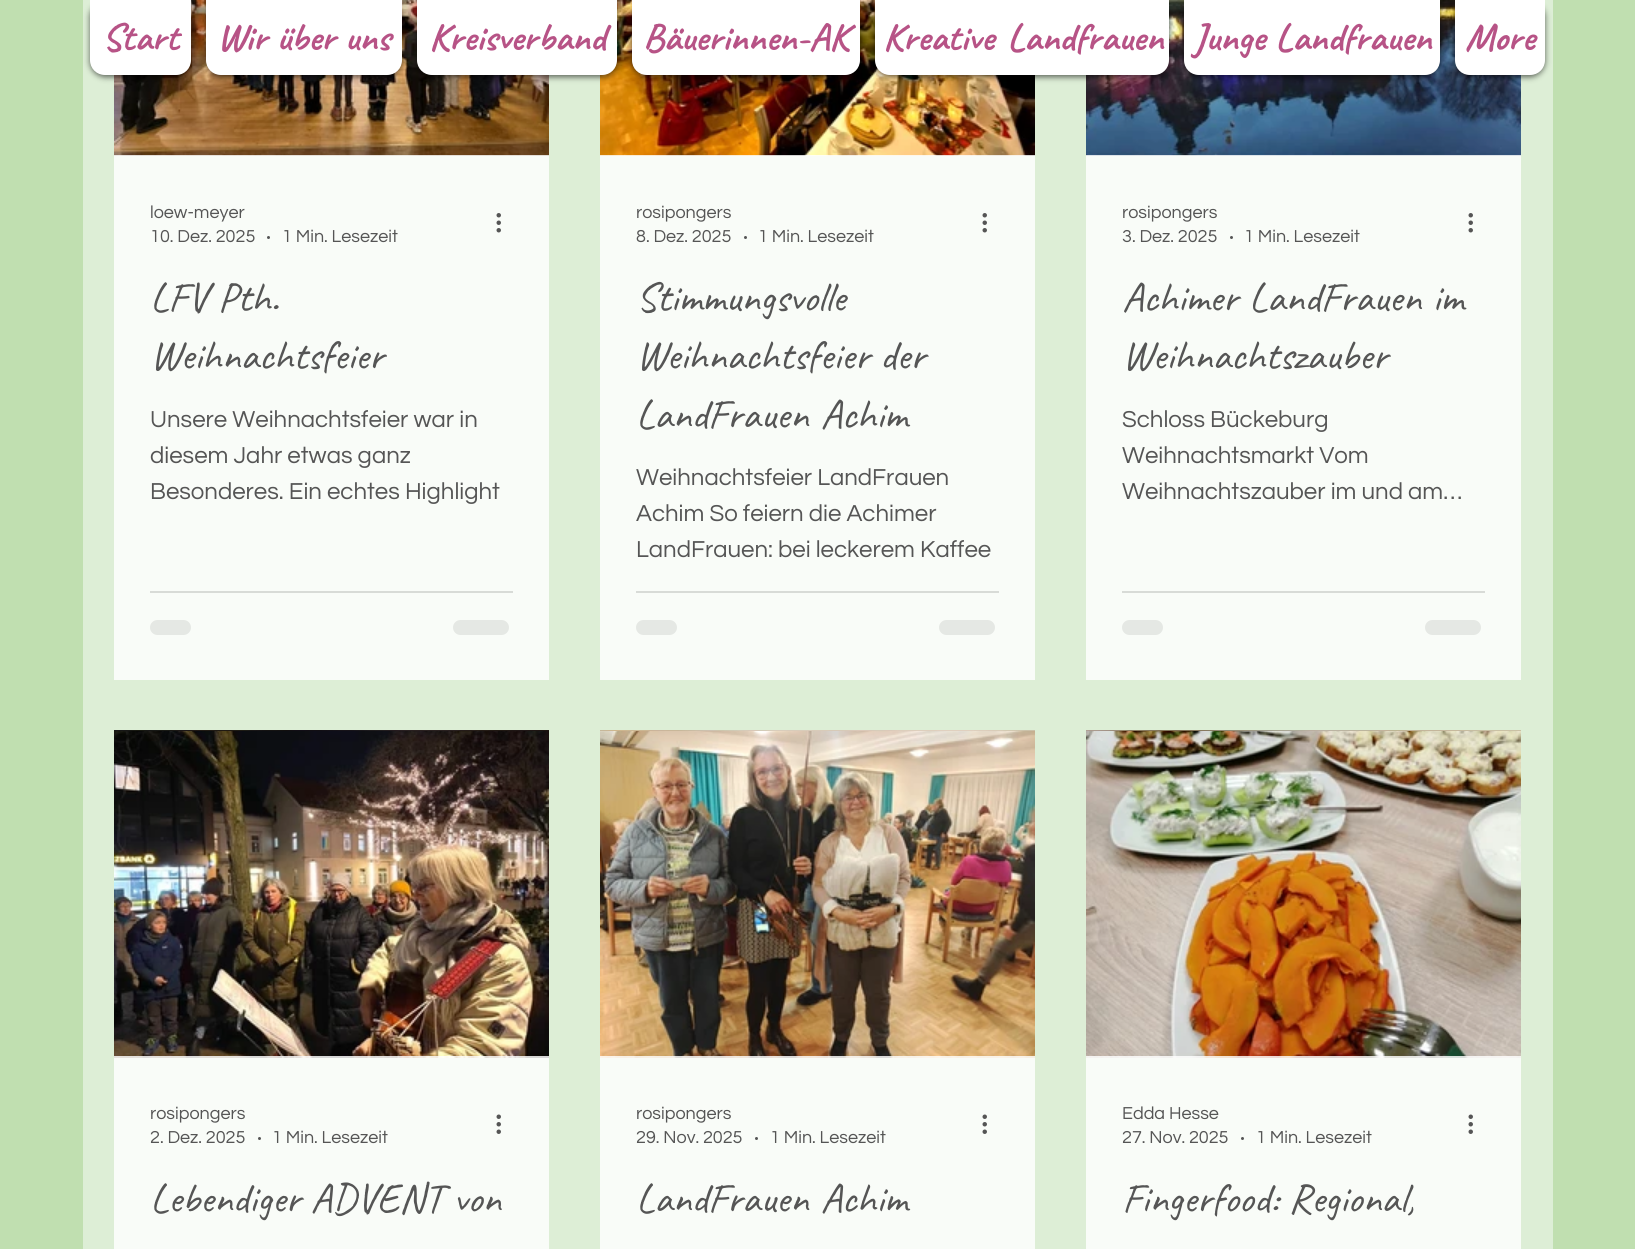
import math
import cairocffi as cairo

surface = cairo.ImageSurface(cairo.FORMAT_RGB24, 1635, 1249)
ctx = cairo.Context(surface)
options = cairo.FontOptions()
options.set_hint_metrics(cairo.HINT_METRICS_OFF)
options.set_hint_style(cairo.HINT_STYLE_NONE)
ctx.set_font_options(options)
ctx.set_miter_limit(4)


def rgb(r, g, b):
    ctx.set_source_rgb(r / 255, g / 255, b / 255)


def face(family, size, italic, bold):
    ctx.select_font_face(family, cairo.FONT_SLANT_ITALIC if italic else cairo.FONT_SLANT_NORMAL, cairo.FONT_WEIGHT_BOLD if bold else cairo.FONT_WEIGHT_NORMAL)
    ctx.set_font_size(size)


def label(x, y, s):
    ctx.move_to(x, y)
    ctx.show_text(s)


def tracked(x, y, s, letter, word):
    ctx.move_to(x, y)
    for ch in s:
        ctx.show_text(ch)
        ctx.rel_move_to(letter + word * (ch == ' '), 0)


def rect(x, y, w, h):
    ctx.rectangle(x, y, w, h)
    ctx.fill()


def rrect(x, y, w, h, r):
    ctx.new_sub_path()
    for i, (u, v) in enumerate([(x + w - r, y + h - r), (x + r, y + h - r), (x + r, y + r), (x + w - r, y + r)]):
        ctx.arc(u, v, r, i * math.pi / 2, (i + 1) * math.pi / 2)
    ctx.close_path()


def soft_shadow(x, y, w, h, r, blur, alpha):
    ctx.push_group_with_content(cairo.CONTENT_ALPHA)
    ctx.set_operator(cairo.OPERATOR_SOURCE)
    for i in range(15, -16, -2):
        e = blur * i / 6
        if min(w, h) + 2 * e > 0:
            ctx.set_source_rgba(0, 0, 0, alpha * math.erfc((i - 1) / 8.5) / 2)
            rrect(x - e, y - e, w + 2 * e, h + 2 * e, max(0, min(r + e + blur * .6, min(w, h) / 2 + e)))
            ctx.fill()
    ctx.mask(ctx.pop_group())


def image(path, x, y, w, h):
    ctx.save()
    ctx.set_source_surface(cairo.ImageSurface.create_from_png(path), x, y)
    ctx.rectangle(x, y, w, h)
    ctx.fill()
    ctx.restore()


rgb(192, 223, 176)
ctx.paint()
rgb(221, 238, 214)
rect(83, 0, 1470, 1249)
image('image0.png', 114, 0, 435, 156)
rgb(0, 0, 0)
soft_shadow(90, 2, 101, 75, 15, 3, 0.6)
rgb(255, 255, 255)
ctx.new_path()
ctx.move_to(90, 0)
ctx.line_to(191, 0)
ctx.line_to(191, 60)
ctx.curve_to(191, 68.5, 184.5, 75, 176, 75)
ctx.line_to(105, 75)
ctx.curve_to(96.5, 75, 90, 68.5, 90, 60)
ctx.close_path()
ctx.fill()
face('Caveat', 39, 0, 1)
rgb(183, 83, 134)
label(102, 50, 'Start')
rgb(0, 0, 0)
soft_shadow(206, 2, 196, 75, 15, 3, 0.6)
rgb(255, 255, 255)
ctx.new_path()
ctx.move_to(206, 0)
ctx.line_to(402, 0)
ctx.line_to(402, 60)
ctx.curve_to(402, 68.5, 395.5, 75, 387, 75)
ctx.line_to(221, 75)
ctx.curve_to(212.5, 75, 206, 68.5, 206, 60)
ctx.close_path()
ctx.fill()
rgb(183, 83, 134)
label(217, 50, 'Wir über uns')
image('image2.png', 600, 0, 435, 156)
rgb(0, 0, 0)
soft_shadow(417, 2, 200, 75, 15, 3, 0.6)
rgb(255, 255, 255)
ctx.new_path()
ctx.move_to(417, 0)
ctx.line_to(617, 0)
ctx.line_to(617, 60)
ctx.curve_to(617, 68.5, 610.5, 75, 602, 75)
ctx.line_to(432, 75)
ctx.curve_to(423.5, 75, 417, 68.5, 417, 60)
ctx.close_path()
ctx.fill()
rgb(183, 83, 134)
label(429, 50, 'Kreisverband')
rgb(0, 0, 0)
soft_shadow(632, 2, 228, 75, 15, 3, 0.6)
rgb(255, 255, 255)
ctx.new_path()
ctx.move_to(632, 0)
ctx.line_to(860, 0)
ctx.line_to(860, 60)
ctx.curve_to(860, 68.5, 853.5, 75, 845, 75)
ctx.line_to(647, 75)
ctx.curve_to(638.5, 75, 632, 68.5, 632, 60)
ctx.close_path()
ctx.fill()
rgb(183, 83, 134)
label(643, 50, 'Bäuerinnen-AK')
image('image3.png', 1086, 0, 435, 156)
rgb(0, 0, 0)
soft_shadow(875, 2, 294, 75, 15, 3, 0.6)
rgb(255, 255, 255)
ctx.new_path()
ctx.move_to(875, 0)
ctx.line_to(1169, 0)
ctx.line_to(1169, 60)
ctx.curve_to(1169, 68.5, 1162.5, 75, 1154, 75)
ctx.line_to(890, 75)
ctx.curve_to(881.5, 75, 875, 68.5, 875, 60)
ctx.close_path()
ctx.fill()
rgb(183, 83, 134)
tracked(883, 50, 'Kreative Landfrauen', 0, 4)
rgb(0, 0, 0)
soft_shadow(1184, 2, 256, 75, 15, 3, 0.6)
rgb(255, 255, 255)
ctx.new_path()
ctx.move_to(1184, 0)
ctx.line_to(1440, 0)
ctx.line_to(1440, 60)
ctx.curve_to(1440, 68.5, 1433.5, 75, 1425, 75)
ctx.line_to(1199, 75)
ctx.curve_to(1190.5, 75, 1184, 68.5, 1184, 60)
ctx.close_path()
ctx.fill()
rgb(183, 83, 134)
tracked(1193, 50, 'Junge Landfrauen', 0, 1)
rgb(0, 0, 0)
soft_shadow(1455, 2, 90, 75, 15, 3, 0.6)
rgb(255, 255, 255)
ctx.new_path()
ctx.move_to(1455, 0)
ctx.line_to(1545, 0)
ctx.line_to(1545, 60)
ctx.curve_to(1545, 68.5, 1538.5, 75, 1530, 75)
ctx.line_to(1470, 75)
ctx.curve_to(1461.5, 75, 1455, 68.5, 1455, 60)
ctx.close_path()
ctx.fill()
rgb(183, 83, 134)
label(1465, 50, 'More')
ctx.set_source_rgba(1, 1, 1, 0.83)
rect(114, 155, 435, 525)
face('Questrial', 18, 0, 0)
rgb(85, 85, 85)
label(150, 218, 'loew-meyer')
label(150, 242, '10. Dez. 2025')
ctx.new_path()
ctx.arc(268.5, 237.5, 1.5, 0, 2 * math.pi)
ctx.fill()
label(282, 242, '1 Min. Lesezeit')
image('image1.png', 496, 213, 5, 20)
face('Caveat', 42, 0, 0)
label(150, 311, 'LFV Pth.')
label(150, 369, 'Weihnachtsfeier')
face('Questrial', 24, 0, 0)
label(150, 427, 'Unsere Weihnachtsfeier war in')
label(150, 463, 'diesem Jahr etwas ganz')
label(150, 499, 'Besonderes. Ein echtes Highlight')
rgb(216, 219, 215)
rect(150, 591, 363, 2)
rgb(229, 232, 228)
rrect(150, 620, 41, 15, 7.5)
ctx.fill()
rrect(453, 620, 56, 15, 7.5)
ctx.fill()
ctx.set_source_rgba(1, 1, 1, 0.83)
rect(600, 155, 435, 525)
face('Questrial', 18, 0, 0)
rgb(85, 85, 85)
label(636, 218, 'rosipongers')
label(636, 242, '8. Dez. 2025')
ctx.new_path()
ctx.arc(745.5, 237.5, 1.5, 0, 2 * math.pi)
ctx.fill()
label(758, 242, '1 Min. Lesezeit')
image('image1.png', 982, 213, 5, 20)
face('Caveat', 42, 0, 0)
label(636, 311, 'Stimmungsvolle')
label(636, 369, 'Weihnachtsfeier der')
tracked(636, 428, 'LandFrauen Achim', 0, 2)
face('Questrial', 24, 0, 0)
label(636, 485, 'Weihnachtsfeier LandFrauen')
label(636, 521, 'Achim So feiern die Achimer')
label(636, 557, 'LandFrauen: bei leckerem Kaffee')
rgb(216, 219, 215)
rect(636, 591, 363, 2)
rgb(229, 232, 228)
rrect(636, 620, 41, 15, 7.5)
ctx.fill()
rrect(939, 620, 56, 15, 7.5)
ctx.fill()
ctx.set_source_rgba(1, 1, 1, 0.83)
rect(1086, 155, 435, 525)
face('Questrial', 18, 0, 0)
rgb(85, 85, 85)
label(1122, 218, 'rosipongers')
label(1122, 242, '3. Dez. 2025')
ctx.new_path()
ctx.arc(1231.5, 237.5, 1.5, 0, 2 * math.pi)
ctx.fill()
label(1244, 242, '1 Min. Lesezeit')
image('image1.png', 1468, 213, 5, 20)
face('Caveat', 42, 0, 0)
tracked(1122, 311, 'Achimer LandFrauen im', 0, 1)
label(1122, 369, 'Weihnachtszauber')
face('Questrial', 24, 0, 0)
label(1122, 427, 'Schloss Bückeburg')
label(1122, 463, 'Weihnachtsmarkt Vom')
label(1122, 499, 'Weihnachtszauber im und am…')
rgb(216, 219, 215)
rect(1122, 591, 363, 2)
rgb(229, 232, 228)
rrect(1122, 620, 41, 15, 7.5)
ctx.fill()
rrect(1425, 620, 56, 15, 7.5)
ctx.fill()
image('image4.png', 114, 730, 435, 1)
image('image5.png', 114, 731, 435, 327)
ctx.set_source_rgba(1, 1, 1, 0.83)
rect(114, 1056, 435, 193)
face('Questrial', 18, 0, 0)
rgb(85, 85, 85)
label(150, 1119, 'rosipongers')
label(150, 1143, '2. Dez. 2025')
ctx.new_path()
ctx.arc(259.5, 1138.5, 1.5, 0, 2 * math.pi)
ctx.fill()
label(272, 1143, '1 Min. Lesezeit')
image('image6.png', 496, 1114, 5, 20)
face('Caveat', 42, 0, 0)
label(150, 1212, 'Lebendiger ADVENT von')
image('image7.png', 600, 730, 435, 1)
image('image8.png', 600, 731, 435, 327)
ctx.set_source_rgba(1, 1, 1, 0.83)
rect(600, 1056, 435, 193)
face('Questrial', 18, 0, 0)
rgb(85, 85, 85)
label(636, 1119, 'rosipongers')
label(636, 1143, '29. Nov. 2025')
ctx.new_path()
ctx.arc(756.5, 1138.5, 1.5, 0, 2 * math.pi)
ctx.fill()
label(770, 1143, '1 Min. Lesezeit')
image('image6.png', 982, 1114, 5, 20)
face('Caveat', 42, 0, 0)
tracked(636, 1212, 'LandFrauen Achim', 0, 2)
image('image9.png', 1086, 730, 435, 1)
image('image10.png', 1086, 731, 435, 327)
ctx.set_source_rgba(1, 1, 1, 0.83)
rect(1086, 1056, 435, 193)
face('Questrial', 18, 0, 0)
rgb(85, 85, 85)
label(1122, 1119, 'Edda Hesse')
label(1122, 1143, '27. Nov. 2025')
ctx.new_path()
ctx.arc(1242.5, 1138.5, 1.5, 0, 2 * math.pi)
ctx.fill()
label(1256, 1143, '1 Min. Lesezeit')
image('image6.png', 1468, 1114, 5, 20)
face('Caveat', 42, 0, 0)
label(1122, 1212, 'Fingerfood: Regional,')
surface.write_to_png('render.png')
